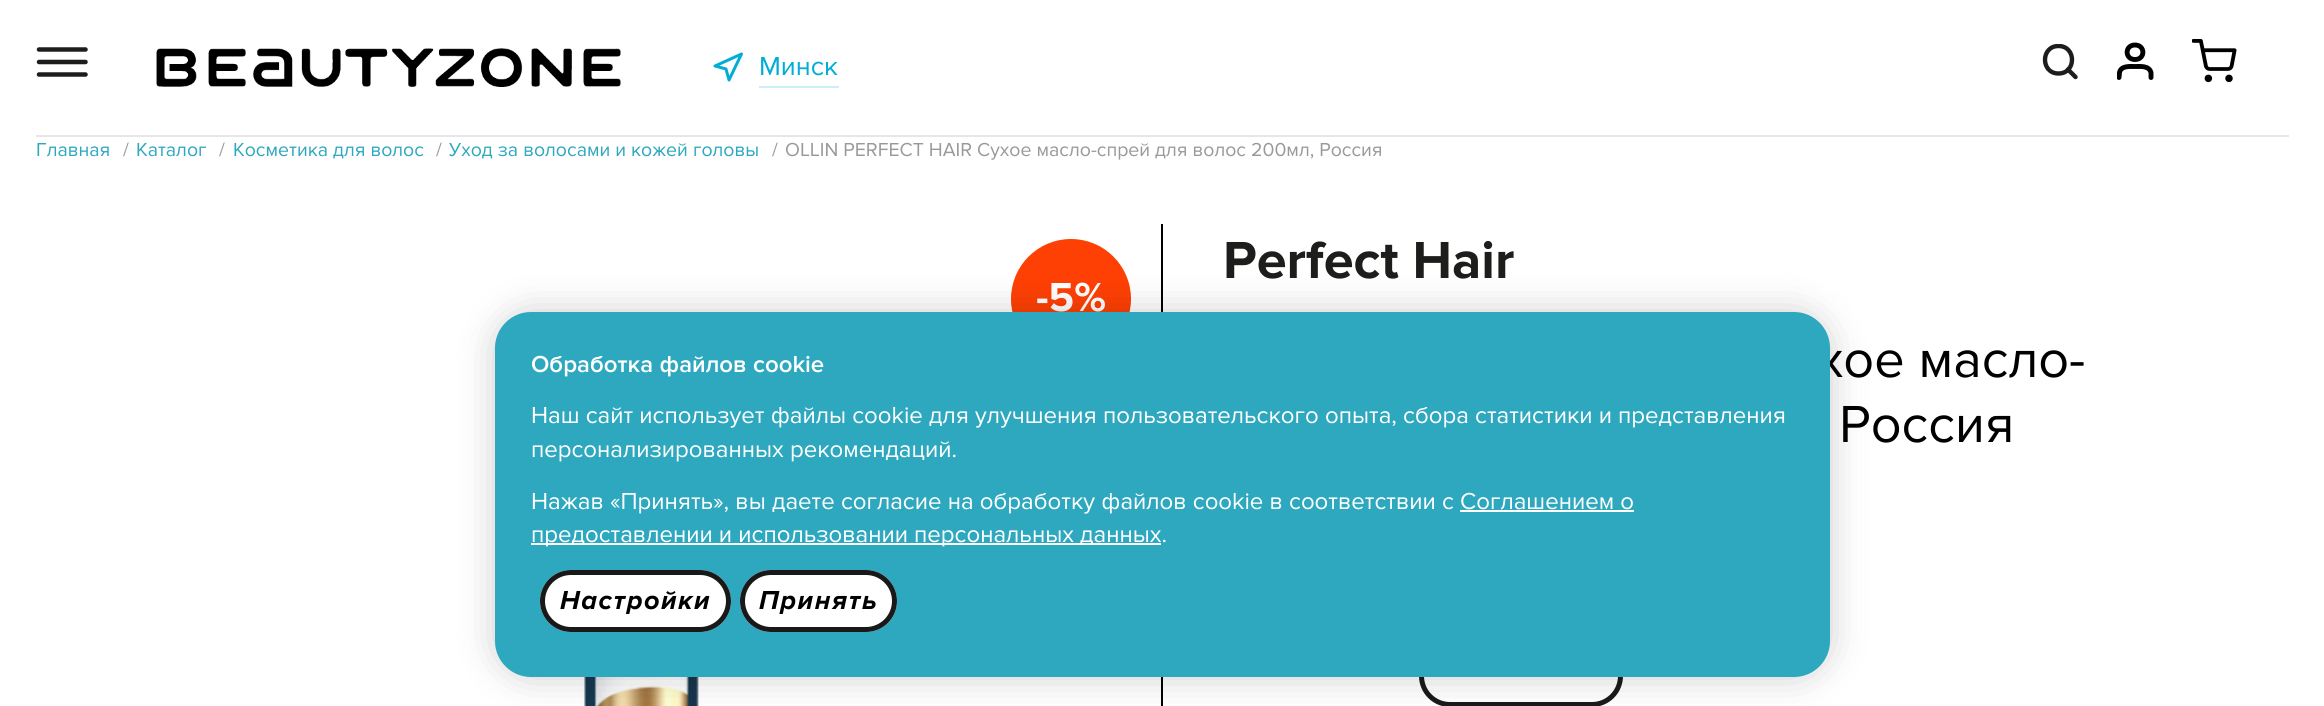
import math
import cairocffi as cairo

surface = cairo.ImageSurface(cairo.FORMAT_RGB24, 2324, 706)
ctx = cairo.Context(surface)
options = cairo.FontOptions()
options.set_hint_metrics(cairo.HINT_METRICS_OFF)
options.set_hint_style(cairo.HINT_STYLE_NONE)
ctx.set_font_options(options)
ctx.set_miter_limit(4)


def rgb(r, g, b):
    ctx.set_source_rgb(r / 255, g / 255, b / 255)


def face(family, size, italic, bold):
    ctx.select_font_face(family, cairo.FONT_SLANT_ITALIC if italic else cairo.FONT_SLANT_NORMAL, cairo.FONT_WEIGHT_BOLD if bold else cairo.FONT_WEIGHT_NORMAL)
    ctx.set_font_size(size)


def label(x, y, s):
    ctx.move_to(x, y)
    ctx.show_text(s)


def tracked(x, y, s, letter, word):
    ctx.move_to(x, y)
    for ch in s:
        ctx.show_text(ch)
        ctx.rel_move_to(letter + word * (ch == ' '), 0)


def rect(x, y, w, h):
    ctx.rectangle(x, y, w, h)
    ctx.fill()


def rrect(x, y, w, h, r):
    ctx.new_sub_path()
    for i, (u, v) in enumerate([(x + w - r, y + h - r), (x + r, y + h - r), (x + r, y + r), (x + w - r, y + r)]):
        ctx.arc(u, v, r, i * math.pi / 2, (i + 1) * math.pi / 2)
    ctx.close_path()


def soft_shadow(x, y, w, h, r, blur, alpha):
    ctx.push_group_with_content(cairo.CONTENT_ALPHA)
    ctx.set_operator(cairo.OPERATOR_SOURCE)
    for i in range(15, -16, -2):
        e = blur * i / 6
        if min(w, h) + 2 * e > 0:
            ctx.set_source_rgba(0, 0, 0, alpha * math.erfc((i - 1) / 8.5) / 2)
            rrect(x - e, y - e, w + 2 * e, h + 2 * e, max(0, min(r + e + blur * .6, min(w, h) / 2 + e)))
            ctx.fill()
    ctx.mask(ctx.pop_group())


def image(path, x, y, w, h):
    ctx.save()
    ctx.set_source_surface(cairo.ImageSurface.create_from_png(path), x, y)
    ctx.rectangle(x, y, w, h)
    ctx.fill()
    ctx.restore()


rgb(255, 255, 255)
ctx.paint()
ctx.new_path()
ctx.move_to(39, 62)
ctx.line_to(85.5, 62)
ctx.move_to(39, 49.5)
ctx.line_to(85.5, 49.5)
ctx.move_to(39, 74.5)
ctx.line_to(85.5, 74.5)
rgb(29, 29, 27)
ctx.set_line_width(4.5)
ctx.set_line_cap(cairo.LINE_CAP_ROUND)
ctx.set_line_join(cairo.LINE_JOIN_ROUND)
ctx.stroke()
image('image0.png', 156, 48, 465, 39)
ctx.new_path()
ctx.move_to(715, 66)
ctx.line_to(741.5, 54)
ctx.line_to(729, 80)
ctx.line_to(726, 69)
ctx.close_path()
rgb(0, 174, 213)
ctx.set_line_width(3)
ctx.stroke()
rgb(204, 239, 247)
rect(759, 86, 80, 2)
face('Proxima Nova', 27, 0, 0)
rgb(0, 174, 213)
label(759, 75, 'Минск')
ctx.save()
ctx.rectangle(2042, 44, 37, 36)
ctx.clip()
ctx.new_path()
ctx.move_to(2058.5, 73.5)
ctx.curve_to(2076.5, 73.5, 2076.5, 46, 2058.5, 46)
ctx.curve_to(2040.5, 46, 2040.5, 73.5, 2058.5, 73.5)
ctx.close_path()
rgb(29, 29, 27)
ctx.set_line_width(4.4)
ctx.stroke()
ctx.restore()
ctx.new_path()
ctx.move_to(2075.5, 77)
ctx.line_to(2068, 69.5)
rgb(29, 29, 27)
ctx.set_line_width(4.4)
ctx.stroke()
ctx.new_path()
ctx.move_to(2135, 59.5)
ctx.curve_to(2145.5, 59.5, 2145.5, 45, 2135, 45)
ctx.curve_to(2124.5, 45, 2124.5, 59.5, 2135, 59.5)
ctx.close_path()
rgb(0, 0, 0)
ctx.set_line_width(4.9)
ctx.stroke()
ctx.save()
ctx.rectangle(2117, 42, 37, 39)
ctx.clip()
ctx.new_path()
ctx.move_to(2151, 77.5)
ctx.line_to(2151, 72.5)
ctx.curve_to(2149, 65.5, 2140.5, 66.5, 2135, 66.5)
ctx.curve_to(2130, 66.5, 2121, 65.5, 2119.5, 72.5)
ctx.line_to(2119, 77.5)
ctx.stroke()
ctx.restore()
image('image1.png', 2192, 39, 45, 44)
rgb(230, 230, 230)
rect(36, 135, 2253, 2)
face('Proxima Nova', 19.5, 0, 0)
rgb(45, 168, 190)
label(36, 156, 'Главная')
rgb(153, 153, 153)
label(123, 156, '/')
rgb(45, 168, 190)
label(136, 156, 'Каталог')
rgb(153, 153, 153)
label(219, 156, '/')
rgb(45, 168, 190)
label(233, 156, 'Косметика для волос')
rgb(153, 153, 153)
label(436, 156, '/')
rgb(45, 168, 190)
label(449, 156, 'Уход за волосами и кожей головы')
rgb(153, 153, 153)
label(772, 156, '/')
label(785, 156, 'OLLIN PERFECT HAIR Сухое масло-спрей для волос 200мл, Россия')
rgb(0, 0, 0)
rect(1161, 224, 2, 482)
rgb(255, 64, 4)
ctx.new_path()
ctx.arc(1071, 299, 60, 0, 2 * math.pi)
ctx.fill()
face('Proxima Nova', 42, 0, 1)
rgb(255, 255, 255)
label(1036, 311, '-5%')
image('image2.png', 582, 677, 117, 29)
face('Proxima Nova', 54, 0, 1)
rgb(29, 29, 27)
label(1223, 278, 'Perfect Hair')
face('Proxima Nova', 54, 0, 0)
rgb(0, 0, 0)
label(1817, 377, 'хое масло-')
label(1839, 442, 'Россия')
rrect(1421.5, 647.5, 199, 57, 28.5)
rgb(26, 26, 26)
ctx.set_line_width(5)
ctx.set_line_cap(cairo.LINE_CAP_BUTT)
ctx.set_line_join(cairo.LINE_JOIN_MITER)
ctx.stroke()
rgb(0, 0, 0)
soft_shadow(495, 312, 1335, 365, 36, 18, 0.2)
rgb(45, 168, 190)
rrect(495, 312, 1335, 365, 36)
ctx.fill()
face('Proxima Nova SemiBold', 24, 0, 0)
rgb(255, 255, 255)
label(531, 372, 'Обработка файлов cookie')
face('Proxima Nova', 24, 0, 0)
label(531, 423, 'Наш сайт использует файлы cookie для улучшения пользовательского опыта, сбора статистики и представления')
label(531, 457, 'персонализированных рекомендаций.')
label(531, 509, 'Нажав «Принять», вы даете согласие на обработку файлов cookie в соответствии с Соглашением о')
rect(531, 543, 630, 2)
label(531, 542, 'предоставлении и использовании персональных данных.')
rect(1460, 510, 174, 2)
rrect(540, 570, 191, 62, 31)
ctx.fill()
rrect(542.5, 572.5, 186, 57, 28.5)
ctx.set_source_rgba(0, 0, 0, 0.9)
ctx.stroke()
face('Proxima Nova', 27, 1, 1)
rgb(0, 0, 0)
tracked(560, 609, 'Настройки', 1.5, 0)
rgb(255, 255, 255)
rrect(740, 570, 157, 62, 31)
ctx.fill()
rrect(742.5, 572.5, 152, 57, 28.5)
ctx.set_source_rgba(0, 0, 0, 0.9)
ctx.stroke()
rgb(0, 0, 0)
tracked(759, 609, 'Принять', 1.5, 0)
surface.write_to_png('render.png')
